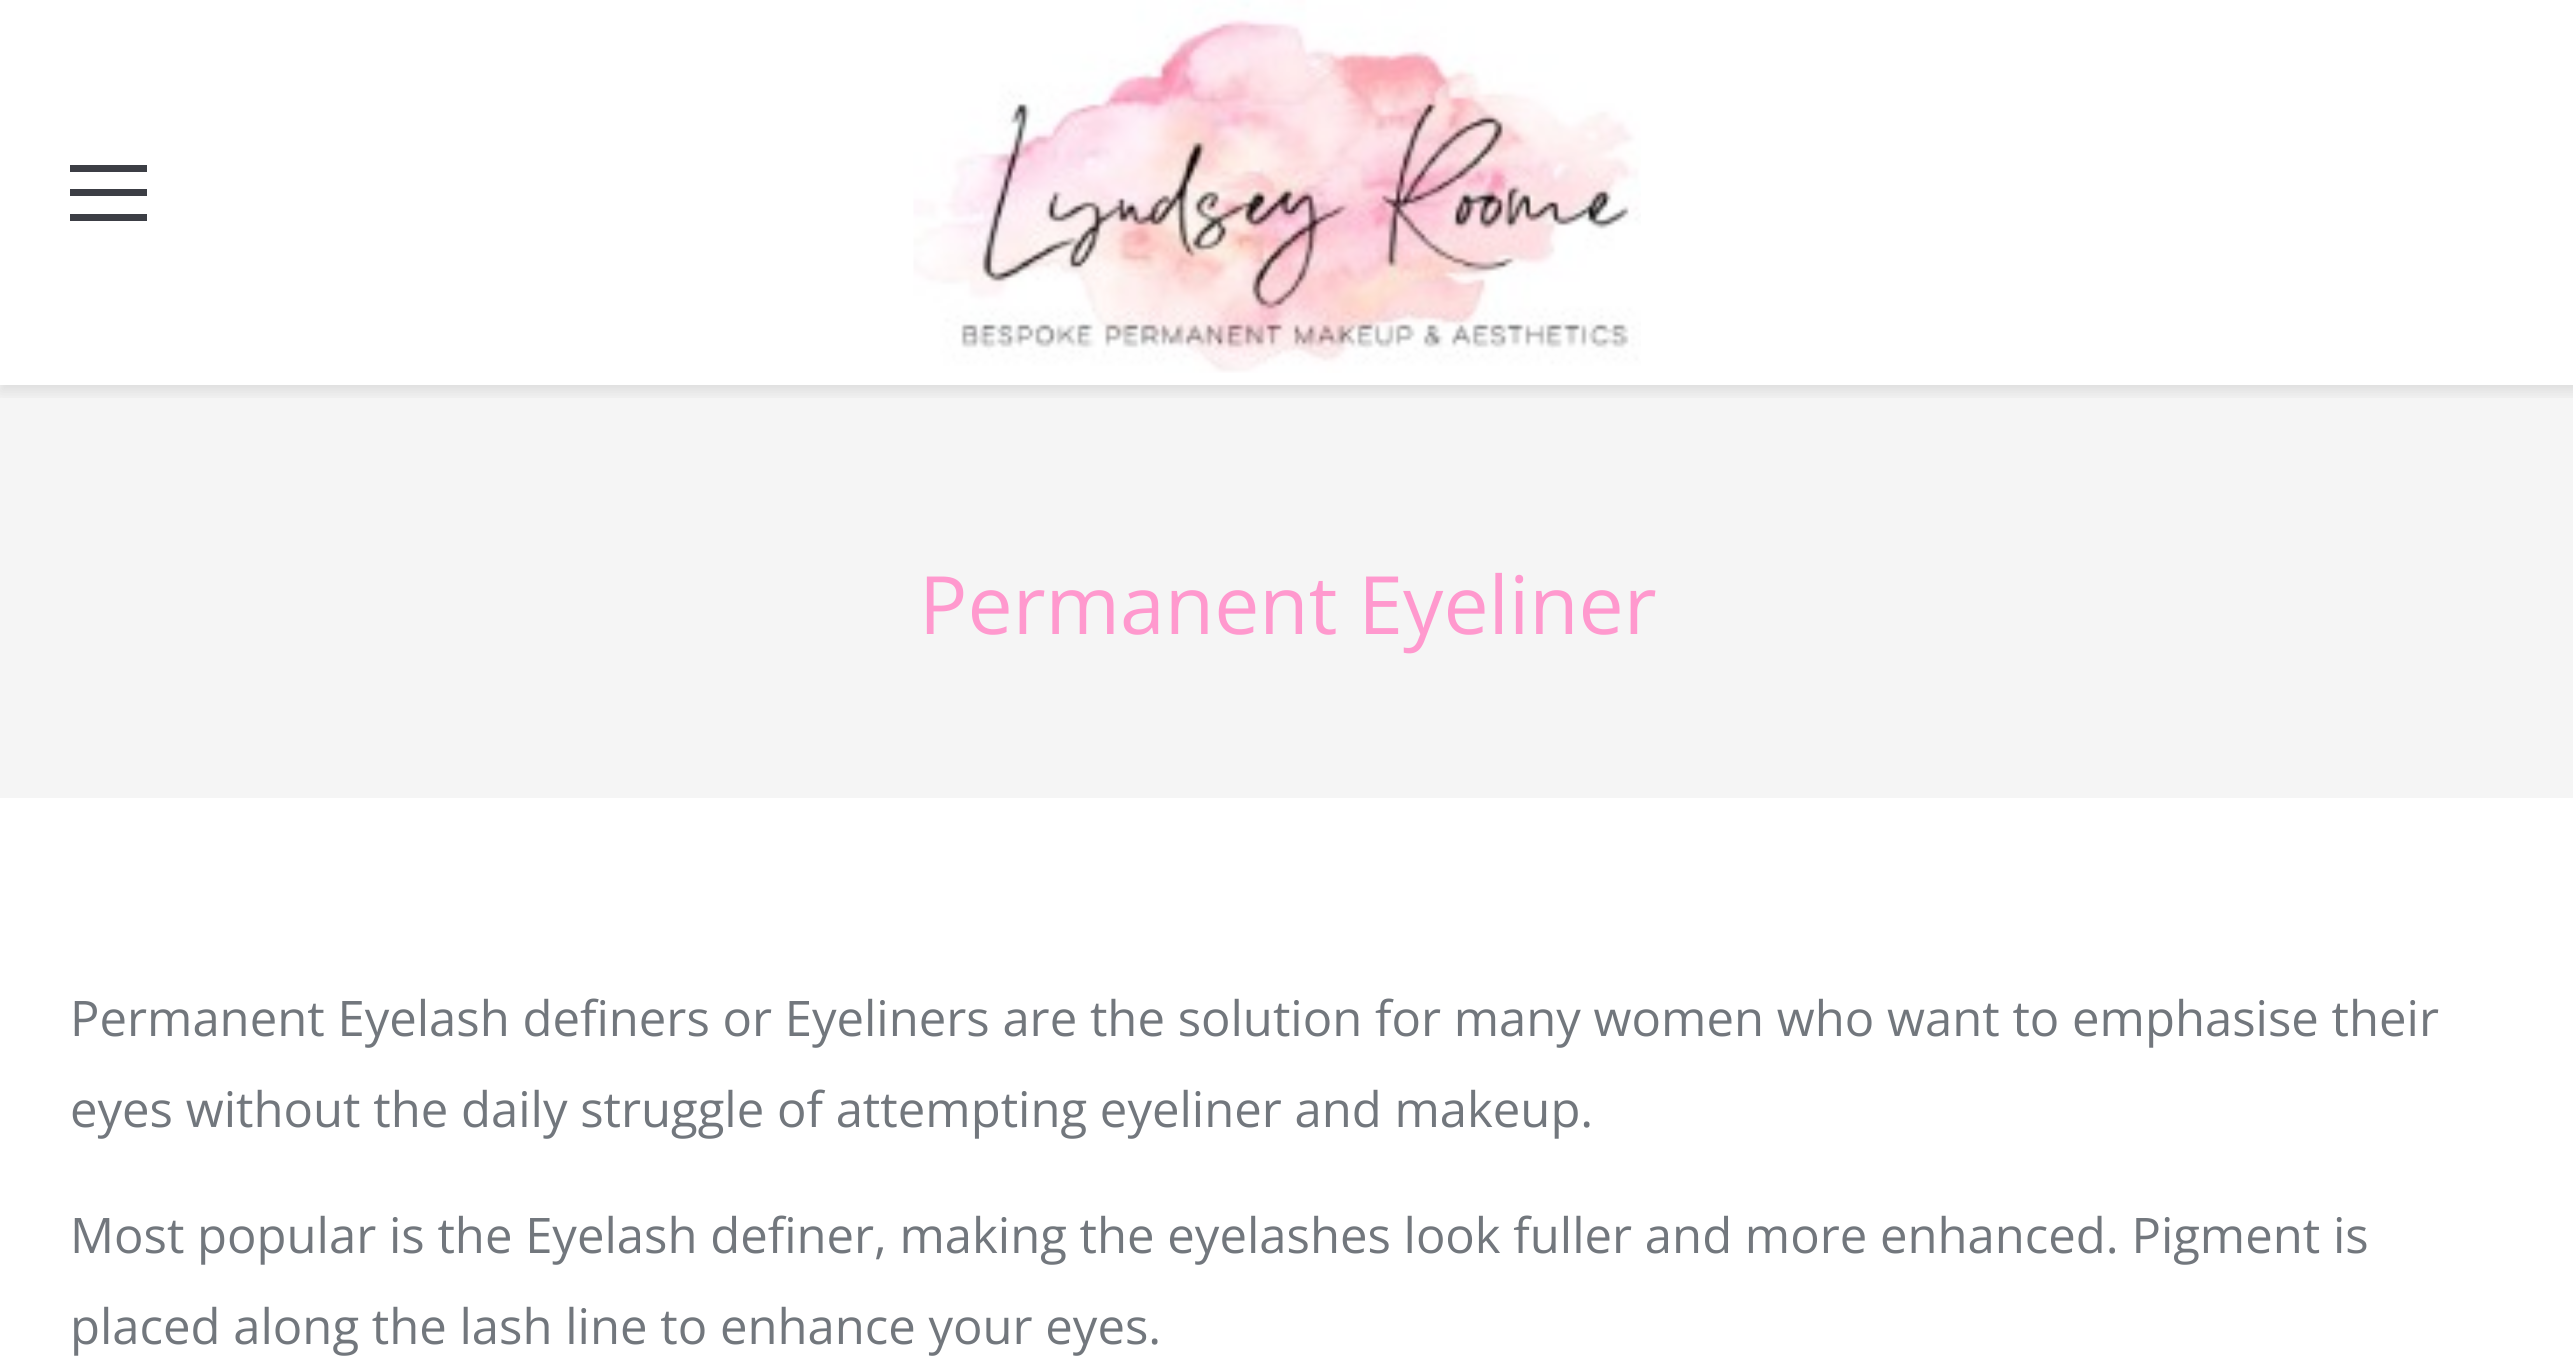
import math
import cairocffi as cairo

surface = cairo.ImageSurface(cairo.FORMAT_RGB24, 2573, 1361)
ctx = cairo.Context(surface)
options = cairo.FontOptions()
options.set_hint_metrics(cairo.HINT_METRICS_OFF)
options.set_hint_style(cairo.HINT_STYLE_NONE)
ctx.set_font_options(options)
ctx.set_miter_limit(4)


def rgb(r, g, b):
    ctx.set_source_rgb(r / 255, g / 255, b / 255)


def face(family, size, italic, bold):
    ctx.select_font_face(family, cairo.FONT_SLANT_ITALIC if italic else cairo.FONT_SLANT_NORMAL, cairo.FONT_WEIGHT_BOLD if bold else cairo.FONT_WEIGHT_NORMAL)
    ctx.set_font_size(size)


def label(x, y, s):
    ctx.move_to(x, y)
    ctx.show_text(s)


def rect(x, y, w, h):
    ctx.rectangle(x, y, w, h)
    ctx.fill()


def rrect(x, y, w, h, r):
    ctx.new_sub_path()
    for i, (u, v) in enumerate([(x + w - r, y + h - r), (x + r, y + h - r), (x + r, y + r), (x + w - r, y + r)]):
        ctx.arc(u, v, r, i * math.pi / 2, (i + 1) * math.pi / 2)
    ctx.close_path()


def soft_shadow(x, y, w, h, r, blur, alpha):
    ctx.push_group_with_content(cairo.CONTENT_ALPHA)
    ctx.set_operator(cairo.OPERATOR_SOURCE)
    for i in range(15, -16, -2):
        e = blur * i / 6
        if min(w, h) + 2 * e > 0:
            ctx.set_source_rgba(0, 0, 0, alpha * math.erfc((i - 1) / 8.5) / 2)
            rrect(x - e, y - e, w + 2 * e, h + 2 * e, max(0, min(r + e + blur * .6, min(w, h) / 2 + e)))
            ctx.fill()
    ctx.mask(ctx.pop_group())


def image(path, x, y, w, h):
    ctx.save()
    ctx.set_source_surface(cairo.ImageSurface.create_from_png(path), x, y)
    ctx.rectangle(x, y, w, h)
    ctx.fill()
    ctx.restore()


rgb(255, 255, 255)
ctx.paint()
rgb(245, 245, 245)
rect(0, 385, 2573, 413)
ctx.save()
ctx.rectangle(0, 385, 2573, 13)
ctx.clip()
rgb(0, 0, 0)
soft_shadow(0, 0, 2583, 392, 0, 7, 0.1)
ctx.restore()
rgb(60, 62, 69)
rect(70, 189, 77, 7)
rect(70, 165, 77, 7)
rect(70, 214, 77, 7)
image('image0.png', 913, 0, 728, 373)
face('Open Sans', 80.5, 0, 0)
rgb(255, 153, 206)
label(919, 634, 'Permanent Eyeliner')
face('Open Sans', 49, 0, 0)
rgb(114, 119, 125)
label(70, 1036, 'Permanent Eyelash definers or Eyeliners are the solution for many women who want to emphasise their')
label(70, 1127, 'eyes without the daily struggle of attempting eyeliner and makeup.')
label(70, 1253, 'Most popular is the Eyelash definer, making the eyelashes look fuller and more enhanced. Pigment is')
label(70, 1344, 'placed along the lash line to enhance your eyes.')
surface.write_to_png('render.png')
